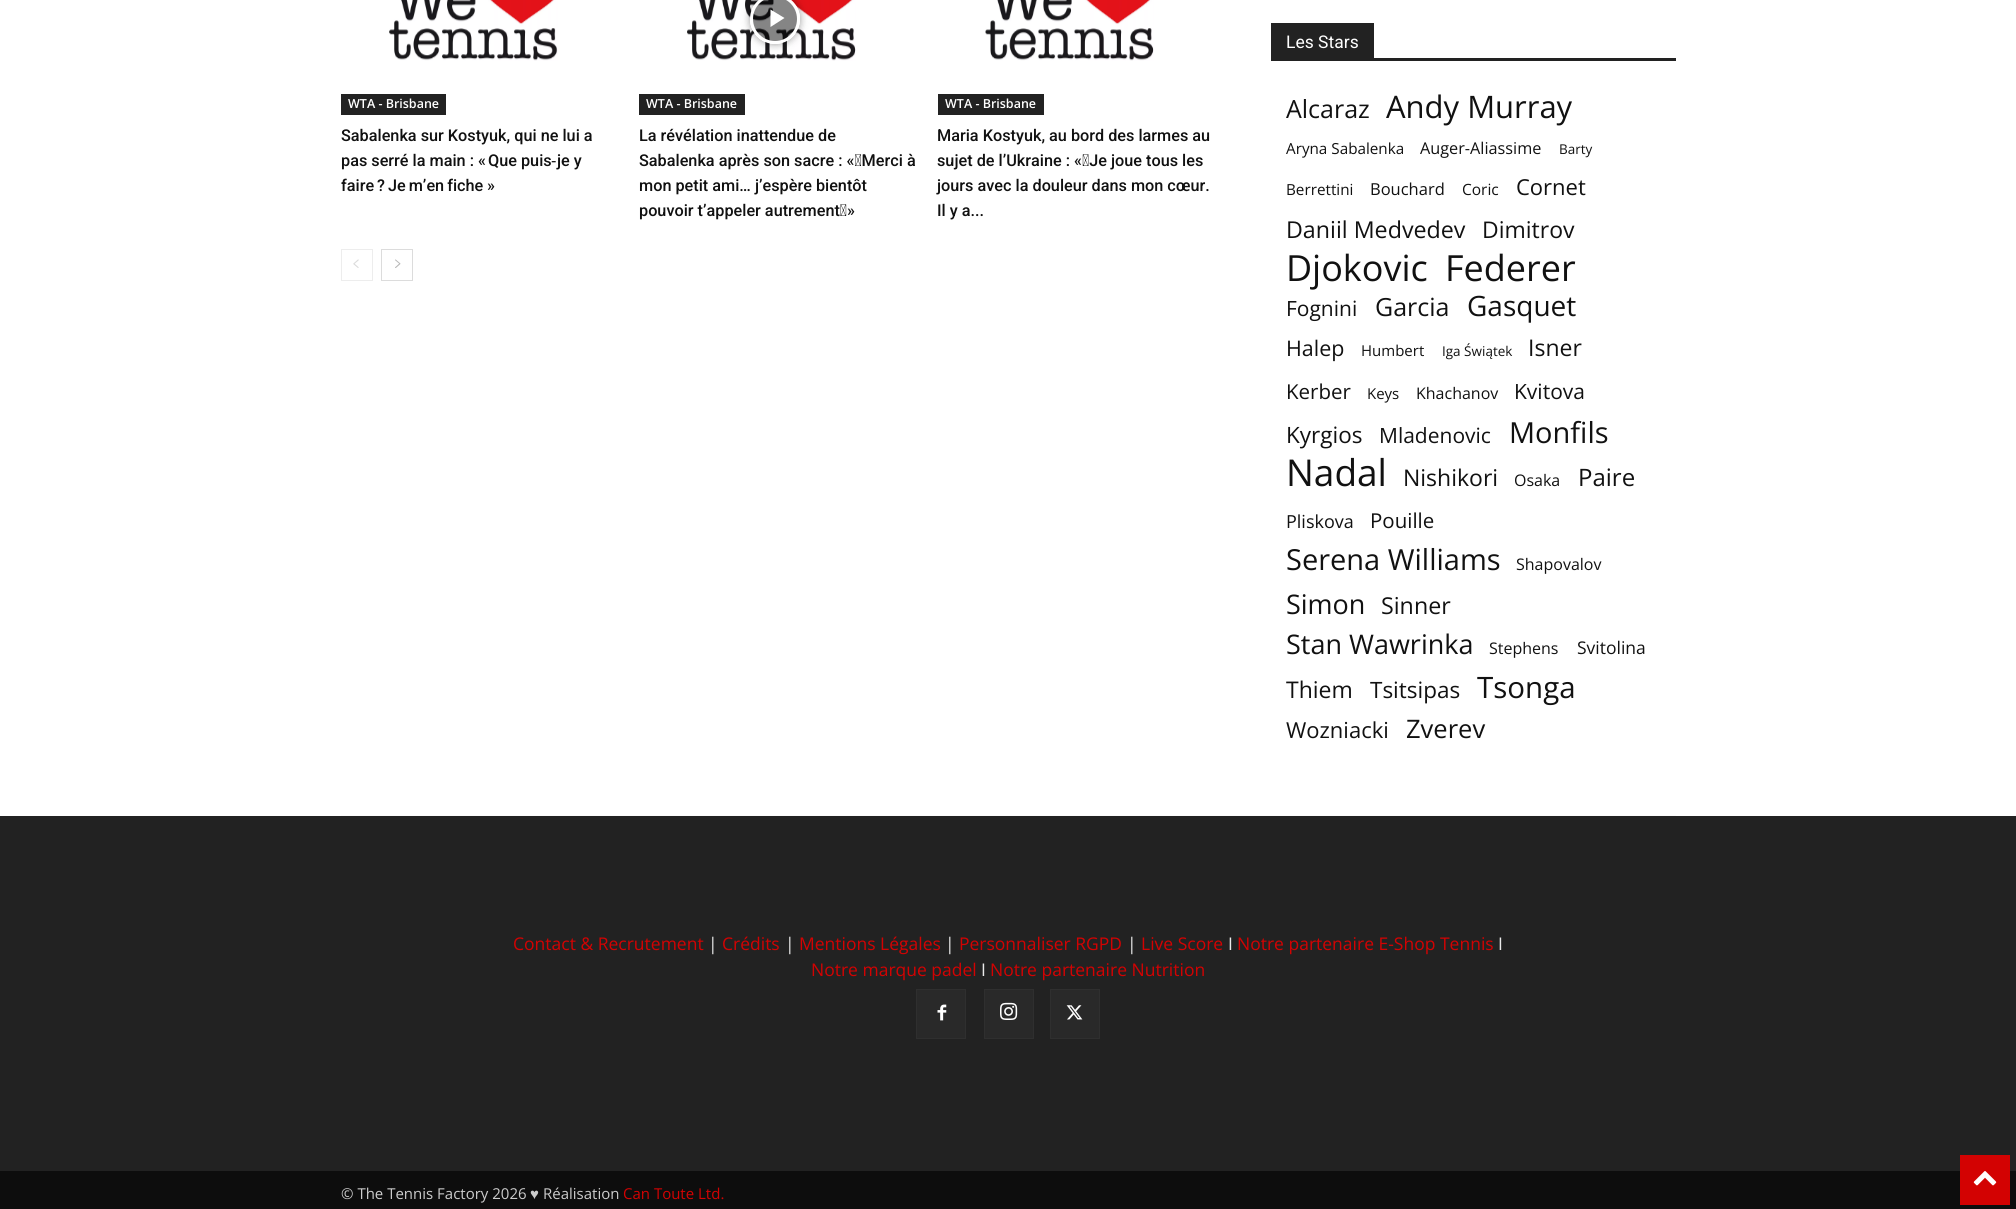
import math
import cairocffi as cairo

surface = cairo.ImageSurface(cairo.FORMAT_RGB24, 2016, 1209)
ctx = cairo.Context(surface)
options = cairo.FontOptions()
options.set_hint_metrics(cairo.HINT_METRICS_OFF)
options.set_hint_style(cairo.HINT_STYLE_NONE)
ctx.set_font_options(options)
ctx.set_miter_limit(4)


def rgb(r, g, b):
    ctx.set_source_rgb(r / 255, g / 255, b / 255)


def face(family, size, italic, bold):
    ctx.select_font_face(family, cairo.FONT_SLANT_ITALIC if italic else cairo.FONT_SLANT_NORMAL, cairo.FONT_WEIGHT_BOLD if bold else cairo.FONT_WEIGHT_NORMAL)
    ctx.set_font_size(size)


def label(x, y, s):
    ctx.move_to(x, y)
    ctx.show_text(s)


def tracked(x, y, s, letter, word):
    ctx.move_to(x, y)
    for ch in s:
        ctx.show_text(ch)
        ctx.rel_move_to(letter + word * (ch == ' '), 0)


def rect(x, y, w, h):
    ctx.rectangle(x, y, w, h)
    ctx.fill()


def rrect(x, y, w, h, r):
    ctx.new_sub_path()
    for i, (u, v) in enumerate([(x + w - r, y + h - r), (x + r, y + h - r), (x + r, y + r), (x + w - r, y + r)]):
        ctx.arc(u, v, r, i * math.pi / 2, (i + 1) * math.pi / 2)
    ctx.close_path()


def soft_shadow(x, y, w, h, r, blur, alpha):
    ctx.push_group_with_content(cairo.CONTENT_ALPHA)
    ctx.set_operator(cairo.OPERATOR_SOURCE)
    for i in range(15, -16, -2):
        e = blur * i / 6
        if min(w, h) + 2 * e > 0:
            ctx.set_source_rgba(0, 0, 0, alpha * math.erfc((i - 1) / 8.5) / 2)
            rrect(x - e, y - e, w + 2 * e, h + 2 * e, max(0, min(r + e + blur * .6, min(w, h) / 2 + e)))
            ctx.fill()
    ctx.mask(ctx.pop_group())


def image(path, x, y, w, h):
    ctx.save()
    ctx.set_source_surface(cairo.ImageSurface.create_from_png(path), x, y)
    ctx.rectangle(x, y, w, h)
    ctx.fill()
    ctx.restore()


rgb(255, 255, 255)
ctx.paint()
image('image0.png', 389, 0, 169, 61)
rgb(34, 34, 34)
rect(341, 94, 105, 21)
face('Open Sans SemiBold', 12.5, 0, 0)
rgb(255, 255, 255)
label(348, 108, 'WTA - Brisbane')
face('Roboto Medium', 16.25, 0, 0)
rgb(17, 17, 17)
label(341, 141, 'Sabalenka sur Kostyuk, qui ne lui a')
label(341, 166, 'pas serré la main : «')
label(488, 166, 'Que puis')
face('Liberation Sans', 16.25, 0, 0)
label(551, 166, '‐')
face('Roboto Medium', 16.25, 0, 0)
label(557, 166, 'je y')
label(341, 191, 'faire')
tracked(377, 191, '? Je m’en fiche', 0, -1)
label(487, 191, '»')
image('image1.png', 687, 0, 169, 61)
ctx.save()
ctx.set_fill_rule(cairo.FILL_RULE_EVEN_ODD)
ctx.new_path()
ctx.move_to(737, 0)
ctx.line_to(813, 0)
ctx.line_to(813, 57)
ctx.line_to(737, 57)
ctx.close_path()
ctx.move_to(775, -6)
ctx.curve_to(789, -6, 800, 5, 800, 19)
ctx.curve_to(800, 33, 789, 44, 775, 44)
ctx.curve_to(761, 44, 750, 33, 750, 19)
ctx.curve_to(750, 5, 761, -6, 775, -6)
ctx.close_path()
ctx.clip()
rgb(0, 0, 0)
soft_shadow(750, -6, 50, 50, 25, 4, 0.4)
ctx.restore()
ctx.set_source_rgba(0, 0, 0, 0.48)
ctx.arc(775, 19, 23.5, 0, 2 * math.pi)
ctx.fill_preserve()
rgb(255, 255, 255)
ctx.set_line_width(3)
ctx.stroke()
ctx.new_path()
ctx.move_to(770.5, 9.5)
ctx.line_to(770.5, 27)
ctx.line_to(784.5, 18)
ctx.close_path()
ctx.fill()
rgb(34, 34, 34)
rect(639, 94, 106, 21)
face('Open Sans SemiBold', 12.5, 0, 0)
rgb(255, 255, 255)
label(646, 108, 'WTA - Brisbane')
face('Roboto Medium', 16.25, 0, 0)
rgb(17, 17, 17)
label(639, 141, 'La révélation inattendue de')
label(639, 166, 'Sabalenka après son sacre : « Merci à')
label(639, 191, 'mon petit ami… j’espère bientôt')
label(639, 216, 'pouvoir t’appeler autrement »')
image('image2.png', 985, 0, 169, 61)
rgb(34, 34, 34)
rect(938, 94, 106, 21)
face('Open Sans SemiBold', 12.5, 0, 0)
rgb(255, 255, 255)
label(945, 108, 'WTA - Brisbane')
face('Roboto Medium', 16.25, 0, 0)
rgb(17, 17, 17)
label(937, 141, 'Maria Kostyuk, au bord des larmes au')
label(937, 166, 'sujet de l’Ukraine : « Je joue tous les')
label(937, 191, 'jours avec la douleur dans mon cœur.')
label(937, 216, 'Il y a...')
ctx.rectangle(341.5, 249.5, 31, 31)
rgb(237, 237, 237)
ctx.set_line_width(1)
ctx.stroke()
image('image3.png', 353, 259, 6, 9)
ctx.rectangle(381.5, 249.5, 31, 31)
rgb(220, 220, 220)
ctx.stroke()
image('image4.png', 395, 259, 6, 9)
rgb(34, 34, 34)
rect(1271, 58, 405, 3)
rect(1271, 23, 103, 35)
face('Roboto', 17.5, 0, 0)
rgb(255, 255, 255)
label(1286, 48, 'Les Stars')
face('Open Sans', 25, 0, 0)
rgb(17, 17, 17)
label(1286, 118, 'Alcaraz')
face('Open Sans', 31, 0, 0)
label(1386, 118, 'Andy Murray')
face('Open Sans', 15.25, 0, 0)
label(1286, 154, 'Aryna Sabalenka')
face('Open Sans', 16.25, 0, 0)
label(1420, 154, 'Auger-Aliassime')
face('Open Sans', 13.5, 0, 0)
label(1559, 154, 'Barty')
face('Open Sans', 15.25, 0, 0)
label(1286, 195, 'Berrettini')
face('Open Sans', 16.5, 0, 0)
label(1370, 195, 'Bouchard')
face('Open Sans', 15.5, 0, 0)
label(1462, 195, 'Coric')
face('Open Sans', 22, 0, 0)
label(1516, 195, 'Cornet')
face('Open Sans', 23.25, 0, 0)
label(1286, 238, 'Daniil Medvedev')
face('Open Sans', 23, 0, 0)
label(1482, 238, 'Dimitrov')
face('Open Sans', 36, 0, 0)
label(1286, 281, 'Djokovic')
label(1445, 281, 'Federer')
face('Open Sans', 21, 0, 0)
label(1286, 316, 'Fognini')
face('Open Sans', 25, 0, 0)
label(1375, 316, 'Garcia')
face('Open Sans', 28, 0, 0)
label(1467, 316, 'Gasquet')
face('Open Sans', 21.5, 0, 0)
label(1286, 356, 'Halep')
face('Open Sans', 15, 0, 0)
label(1361, 356, 'Humbert')
face('Open Sans', 13.5, 0, 0)
label(1442, 356, 'Iga Świątek')
face('Open Sans', 23, 0, 0)
label(1528, 356, 'Isner')
face('Open Sans', 20.5, 0, 0)
label(1286, 399, 'Kerber')
face('Open Sans', 15, 0, 0)
label(1367, 399, 'Keys')
face('Open Sans', 16, 0, 0)
label(1416, 399, 'Khachanov')
face('Open Sans', 21, 0, 0)
label(1514, 399, 'Kvitova')
face('Open Sans', 22.5, 0, 0)
label(1286, 443, 'Kyrgios')
face('Open Sans', 21, 0, 0)
label(1379, 443, 'Mladenovic')
face('Open Sans', 29, 0, 0)
label(1509, 443, 'Monfils')
face('Open Sans', 37, 0, 0)
label(1286, 486, 'Nadal')
face('Open Sans', 23, 0, 0)
label(1403, 486, 'Nishikori')
face('Open Sans', 16, 0, 0)
label(1514, 486, 'Osaka')
face('Open Sans', 24, 0, 0)
label(1578, 486, 'Paire')
face('Open Sans', 18, 0, 0)
label(1286, 528, 'Pliskova')
face('Open Sans', 20.5, 0, 0)
label(1370, 528, 'Pouille')
face('Open Sans', 29, 0, 0)
label(1286, 570, 'Serena Williams')
face('Open Sans', 16, 0, 0)
label(1516, 570, 'Shapovalov')
face('Open Sans', 27, 0, 0)
label(1286, 614, 'Simon')
face('Open Sans', 23.25, 0, 0)
label(1381, 614, 'Sinner')
face('Open Sans', 27, 0, 0)
label(1286, 654, 'Stan Wawrinka')
face('Open Sans', 16, 0, 0)
label(1489, 654, 'Stephens')
face('Open Sans', 17.5, 0, 0)
label(1577, 654, 'Svitolina')
face('Open Sans', 23, 0, 0)
label(1286, 698, 'Thiem')
face('Open Sans', 22.5, 0, 0)
label(1370, 698, 'Tsitsipas')
face('Open Sans', 29.5, 0, 0)
label(1477, 698, 'Tsonga')
face('Open Sans', 22, 0, 0)
label(1286, 738, 'Wozniacki')
face('Open Sans', 25.5, 0, 0)
label(1406, 738, 'Zverev')
rgb(252, 252, 252)
rect(341, 815, 1335, 1)
rgb(34, 34, 34)
rect(0, 816, 2016, 355)
face('Open Sans', 17.5, 0, 0)
rgb(211, 2, 2)
label(513, 950, 'Contact & Recrutement')
rgb(234, 234, 234)
label(708, 950, '|')
rgb(211, 2, 2)
label(722, 950, 'Crédits')
rgb(234, 234, 234)
label(785, 950, '|')
rgb(211, 2, 2)
label(799, 950, 'Mentions Légales')
rgb(234, 234, 234)
label(945, 950, '|')
rgb(211, 2, 2)
label(959, 950, 'Personnaliser RGPD')
rgb(234, 234, 234)
label(1127, 950, '|')
rgb(211, 2, 2)
label(1141, 950, 'Live Score')
rgb(234, 234, 234)
label(1228, 950, 'I')
rgb(211, 2, 2)
label(1237, 950, 'Notre partenaire E-Shop Tennis')
rgb(234, 234, 234)
label(1498, 950, 'I')
rgb(211, 2, 2)
label(811, 976, 'Notre marque padel')
rgb(234, 234, 234)
label(981, 976, 'I')
rgb(211, 2, 2)
label(990, 976, 'Notre partenaire Nutrition')
rgb(41, 41, 41)
rect(917, 990, 48, 48)
image('image5.png', 937, 1004, 10, 17)
ctx.rectangle(916.5, 989.5, 49, 49)
rgb(47, 47, 47)
ctx.stroke()
rgb(41, 41, 41)
rect(985, 990, 48, 48)
image('image6.png', 1000, 1002, 18, 18)
ctx.rectangle(984.5, 989.5, 49, 49)
rgb(47, 47, 47)
ctx.stroke()
rgb(41, 41, 41)
rect(1051, 990, 48, 48)
image('image7.png', 1066, 1005, 17, 15)
ctx.rectangle(1050.5, 989.5, 49, 49)
rgb(47, 47, 47)
ctx.stroke()
rgb(13, 13, 13)
rect(0, 1171, 2016, 38)
face('Open Sans', 15, 0, 0)
rgb(204, 204, 204)
label(341, 1199, '© The Tennis Factory 2026')
face('Liberation Sans', 15, 0, 0)
label(530, 1199, '♥')
face('Open Sans', 15, 0, 0)
label(543, 1199, 'Réalisation')
rgb(211, 2, 2)
label(623, 1199, 'Can Toute Ltd.')
rect(1960, 1155, 50, 50)
image('image8.png', 1973, 1171, 24, 15)
surface.write_to_png('render.png')
